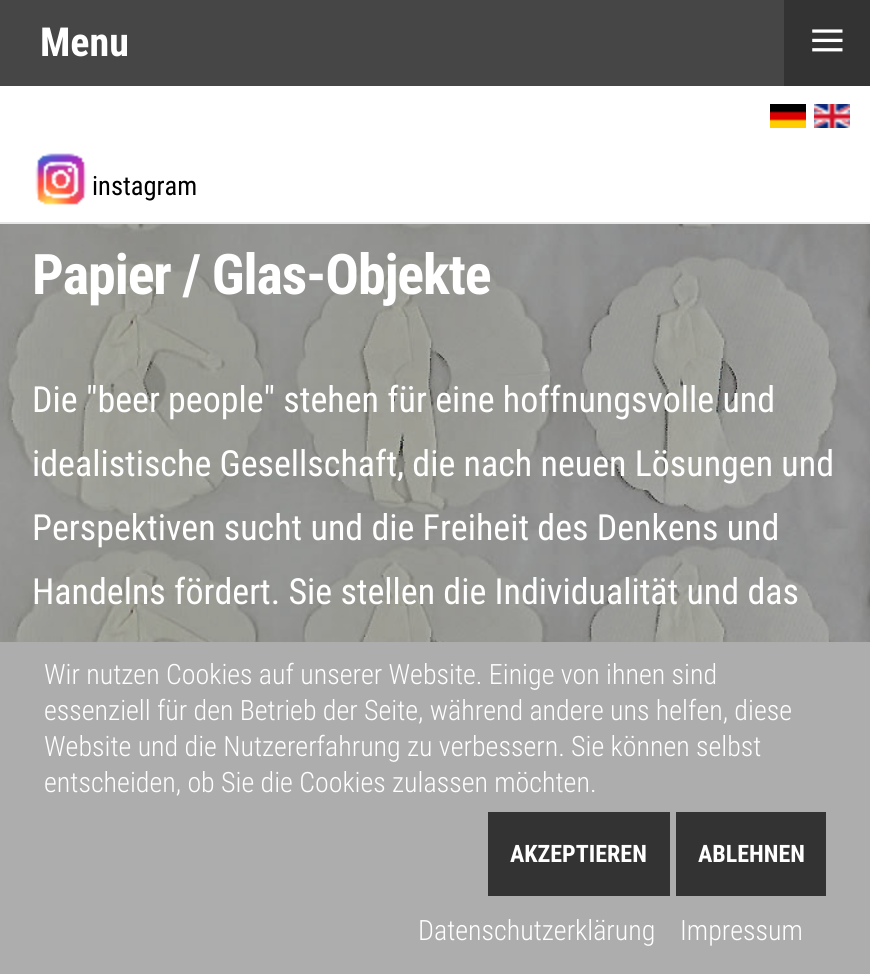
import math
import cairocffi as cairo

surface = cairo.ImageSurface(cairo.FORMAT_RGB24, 870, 974)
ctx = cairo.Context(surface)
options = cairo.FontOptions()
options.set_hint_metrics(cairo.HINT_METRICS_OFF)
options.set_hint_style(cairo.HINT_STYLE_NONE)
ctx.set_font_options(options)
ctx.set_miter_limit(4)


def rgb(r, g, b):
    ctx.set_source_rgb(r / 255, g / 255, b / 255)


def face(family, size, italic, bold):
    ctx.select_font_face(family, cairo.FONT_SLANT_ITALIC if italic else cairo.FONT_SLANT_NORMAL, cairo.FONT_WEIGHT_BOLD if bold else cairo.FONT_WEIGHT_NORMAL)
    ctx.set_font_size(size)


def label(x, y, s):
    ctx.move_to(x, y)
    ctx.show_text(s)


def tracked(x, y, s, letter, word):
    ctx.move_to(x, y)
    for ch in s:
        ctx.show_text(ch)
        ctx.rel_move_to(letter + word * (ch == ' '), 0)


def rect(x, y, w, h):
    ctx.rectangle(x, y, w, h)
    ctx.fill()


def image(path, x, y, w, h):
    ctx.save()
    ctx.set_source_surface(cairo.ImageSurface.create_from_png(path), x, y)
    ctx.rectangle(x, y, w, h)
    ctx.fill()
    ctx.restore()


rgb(255, 255, 255)
ctx.paint()
rgb(70, 70, 70)
rect(0, 0, 784, 86)
face('Roboto Condensed', 40, 0, 1)
rgb(255, 255, 255)
label(40, 56, 'Menu')
rgb(51, 51, 51)
rect(784, 0, 86, 86)
face('Liberation Serif', 65, 0, 0)
rgb(255, 255, 255)
label(809, 62, '≡')
image('image0.png', 770, 104, 36, 24)
image('image1.png', 814, 104, 36, 24)
image('image2.png', 35, 153, 52, 52)
face('Roboto Condensed', 26.5, 0, 0)
rgb(0, 0, 0)
label(92, 195, 'instagram')
rgb(231, 231, 232)
rect(0, 222, 870, 2)
image('image3.png', 0, 224, 870, 418)
face('Roboto Condensed', 56, 0, 1)
rgb(255, 255, 255)
tracked(32, 294, 'Papier / Glas-Objekte', -1.1, 0)
face('Roboto Condensed', 36, 0, 0)
label(32, 412, 'Die "beer people" stehen für eine hoffnungsvolle und')
label(32, 476, 'idealistische Gesellschaft, die nach neuen Lösungen und')
label(32, 540, 'Perspektiven sucht und die Freiheit des Denkens und')
label(32, 604, 'Handelns fördert. Sie stellen die Individualität und das')
rgb(173, 173, 173)
rect(0, 642, 870, 332)
face('Roboto Condensed Light', 28, 0, 0)
rgb(255, 255, 255)
label(44, 684, 'Wir nutzen Cookies auf unserer Website. Einige von ihnen sind')
label(44, 720, 'essenziell für den Betrieb der Seite, während andere uns helfen, diese')
label(44, 756, 'Website und die Nutzererfahrung zu verbessern. Sie können selbst')
label(44, 792, 'entscheiden, ob Sie die Cookies zulassen möchten.')
rgb(51, 51, 51)
rect(488, 812, 182, 84)
face('Roboto Condensed', 24, 0, 1)
rgb(255, 255, 255)
label(510, 862, 'AKZEPTIEREN')
rgb(51, 51, 51)
rect(676, 812, 150, 84)
rgb(255, 255, 255)
label(698, 862, 'ABLEHNEN')
face('Roboto Condensed Light', 28, 0, 0)
label(418, 940, 'Datenschutzerklärung')
label(680, 940, 'Impressum')
surface.write_to_png('render.png')
